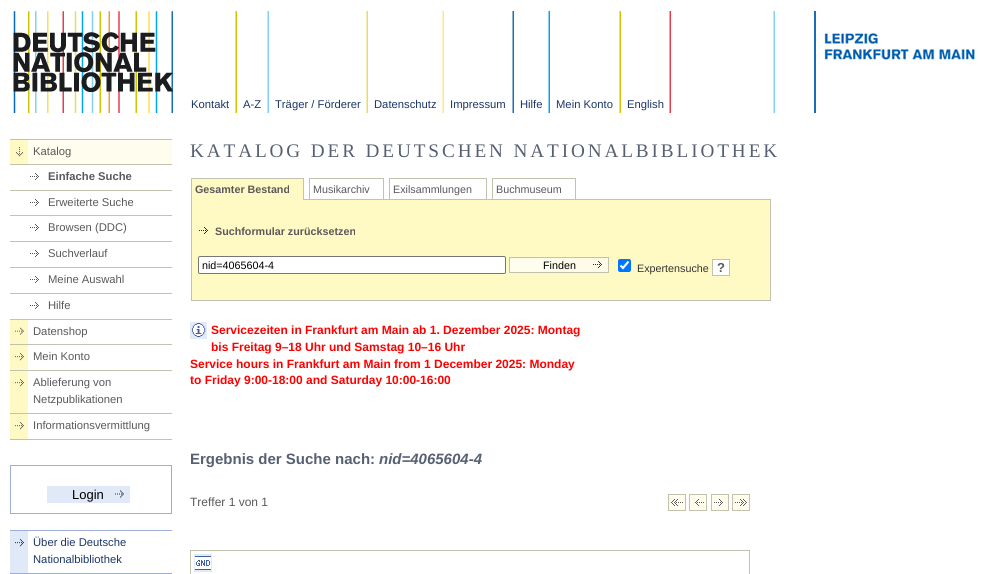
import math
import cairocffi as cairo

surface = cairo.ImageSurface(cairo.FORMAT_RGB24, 986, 574)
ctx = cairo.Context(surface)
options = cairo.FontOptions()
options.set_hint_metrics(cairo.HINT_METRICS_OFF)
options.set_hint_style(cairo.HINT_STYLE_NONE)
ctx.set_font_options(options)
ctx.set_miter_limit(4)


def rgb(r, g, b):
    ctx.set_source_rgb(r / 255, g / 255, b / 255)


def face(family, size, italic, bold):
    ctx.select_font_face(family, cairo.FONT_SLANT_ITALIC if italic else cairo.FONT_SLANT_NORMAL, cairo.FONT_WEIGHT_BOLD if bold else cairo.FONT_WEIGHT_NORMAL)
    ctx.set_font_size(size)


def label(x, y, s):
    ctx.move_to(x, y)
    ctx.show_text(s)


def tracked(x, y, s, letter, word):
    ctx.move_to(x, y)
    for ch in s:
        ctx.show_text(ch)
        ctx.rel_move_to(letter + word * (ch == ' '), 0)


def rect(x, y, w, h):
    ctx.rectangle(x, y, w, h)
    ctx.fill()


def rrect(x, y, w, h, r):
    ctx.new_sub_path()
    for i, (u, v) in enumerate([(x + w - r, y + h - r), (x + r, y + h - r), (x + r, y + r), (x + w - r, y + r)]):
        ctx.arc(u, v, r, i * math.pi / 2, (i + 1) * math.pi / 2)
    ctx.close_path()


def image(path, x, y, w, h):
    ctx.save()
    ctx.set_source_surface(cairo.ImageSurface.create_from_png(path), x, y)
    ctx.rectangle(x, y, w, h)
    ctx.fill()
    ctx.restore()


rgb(255, 255, 255)
ctx.paint()
image('image0.png', 773, 11, 2, 102)
image('image1.png', 13, 11, 160, 102)
image('image2.png', 235, 11, 2, 102)
face('Liberation Sans', 11.25, 0, 0)
rgb(28, 54, 103)
label(191, 108, 'Kontakt')
image('image0.png', 267, 11, 2, 102)
label(243, 108, 'A-Z')
image('image3.png', 366, 11, 2, 102)
label(275, 108, 'Träger / Förderer')
image('image4.png', 442, 11, 2, 102)
label(374, 108, 'Datenschutz')
image('image5.png', 512, 11, 2, 102)
label(450, 108, 'Impressum')
image('image6.png', 548, 11, 2, 102)
label(520, 108, 'Hilfe')
image('image2.png', 619, 11, 2, 102)
label(556, 108, 'Mein Konto')
image('image7.png', 669, 11, 2, 102)
label(627, 108, 'English')
image('image8.png', 814, 11, 161, 102)
rgb(193, 195, 174)
rect(10, 439, 162, 1)
rgb(255, 253, 237)
rect(28, 140, 144, 24)
image('image9.png', 10, 140, 18, 24)
rgb(193, 195, 174)
rect(10, 139, 162, 1)
image('image10.png', 16, 144, 7, 13)
rgb(92, 87, 91)
label(33, 155, 'Katalog')
rgb(193, 195, 174)
rect(10, 164, 162, 1)
image('image11.png', 30, 173, 9, 7)
face('Liberation Sans', 11.25, 0, 1)
rgb(92, 87, 91)
label(48, 180, 'Einfache Suche')
rgb(193, 195, 174)
rect(10, 190, 162, 1)
image('image11.png', 30, 199, 9, 7)
face('Liberation Sans', 11.25, 0, 0)
rgb(92, 87, 91)
label(48, 206, 'Erweiterte Suche')
rgb(193, 195, 174)
rect(10, 215, 162, 1)
image('image11.png', 30, 224, 9, 7)
rgb(92, 87, 91)
label(48, 231, 'Browsen (DDC)')
rgb(193, 195, 174)
rect(10, 241, 162, 1)
image('image11.png', 30, 250, 9, 7)
rgb(92, 87, 91)
label(48, 257, 'Suchverlauf')
rgb(193, 195, 174)
rect(10, 267, 162, 1)
image('image11.png', 30, 276, 9, 7)
rgb(92, 87, 91)
label(48, 283, 'Meine Auswahl')
rgb(193, 195, 174)
rect(10, 293, 162, 1)
image('image11.png', 30, 302, 9, 7)
rgb(92, 87, 91)
label(48, 309, 'Hilfe')
image('image12.png', 10, 320, 18, 24)
rgb(193, 195, 174)
rect(10, 319, 162, 1)
image('image13.png', 15, 324, 9, 11)
rgb(92, 87, 91)
label(33, 335, 'Datenshop')
image('image14.png', 10, 345, 18, 25)
rgb(193, 195, 174)
rect(10, 344, 162, 1)
image('image15.png', 15, 350, 9, 11)
rgb(92, 87, 91)
label(33, 360, 'Mein Konto')
image('image16.png', 10, 371, 18, 42)
rgb(193, 195, 174)
rect(10, 370, 162, 1)
image('image15.png', 15, 376, 9, 11)
rgb(92, 87, 91)
label(33, 386, 'Ablieferung von')
label(33, 403, 'Netzpublikationen')
image('image14.png', 10, 414, 18, 25)
rgb(193, 195, 174)
rect(10, 413, 162, 1)
image('image15.png', 15, 419, 9, 11)
rgb(92, 87, 91)
label(33, 429, 'Informationsvermittlung')
ctx.rectangle(10.5, 465.5, 161, 48)
rgb(158, 173, 214)
ctx.set_line_width(1)
ctx.stroke()
rgb(224, 233, 248)
rect(47, 486, 83, 17)
image('image17.png', 115, 490, 9, 8)
face('Liberation Sans', 13, 0, 0)
rgb(0, 0, 0)
label(72, 499, 'Login')
rgb(157, 175, 213)
rect(10, 573, 162, 1)
image('image18.png', 10, 531, 18, 42)
rect(10, 530, 162, 1)
image('image19.png', 15, 536, 9, 11)
face('Liberation Sans', 11.25, 0, 0)
rgb(28, 54, 103)
label(33, 546, 'Über die Deutsche')
label(33, 563, 'Nationalbibliothek')
face('Liberation Serif', 19.2, 0, 0)
rgb(87, 96, 114)
tracked(190, 157, 'KATALOG DER DEUTSCHEN NATIONALBIBLIOTHEK', 2.9, 0)
ctx.rectangle(309.5, 178.5, 74, 30)
rgb(193, 195, 174)
ctx.stroke()
ctx.rectangle(389.5, 178.5, 97, 30)
ctx.stroke()
ctx.rectangle(492.5, 178.5, 83, 30)
ctx.stroke()
rgb(255, 250, 195)
ctx.rectangle(191.5, 199.5, 579, 101)
ctx.fill_preserve()
rgb(193, 195, 174)
ctx.stroke()
rgb(255, 250, 195)
rect(192, 179, 111, 21)
rgb(193, 195, 174)
rect(191, 178, 113, 1)
rect(303, 178, 1, 22)
rect(191, 178, 1, 22)
face('Liberation Sans', 10.75, 0, 1)
rgb(92, 87, 91)
label(195, 193, 'Gesamter Bestand')
face('Liberation Sans', 10.75, 0, 0)
label(313, 193, 'Musikarchiv')
label(393, 193, 'Exilsammlungen')
label(496, 193, 'Buchmuseum')
image('image20.png', 199, 227, 9, 7)
face('Liberation Sans', 10.75, 0, 1)
label(215, 235, 'Suchformular zurücksetzen')
rgb(255, 255, 255)
rrect(198.5, 256.5, 307, 17, 1.5)
ctx.fill_preserve()
rgb(118, 118, 118)
ctx.stroke()
face('Liberation Sans', 10.75, 0, 0)
rgb(0, 0, 0)
label(202, 269, 'nid=4065604-4')
rgb(255, 253, 237)
rect(510, 258, 44, 14)
image('image21.png', 554, 258, 54, 14)
ctx.rectangle(509.5, 257.5, 99, 15)
rgb(193, 195, 174)
ctx.stroke()
rgb(0, 0, 0)
label(543, 269, 'Finden')
rgb(0, 117, 255)
rrect(618, 259, 13, 13, 2)
ctx.fill()
ctx.new_path()
ctx.move_to(620.5, 265.5)
ctx.line_to(623, 268)
ctx.line_to(628.5, 261.5)
rgb(255, 255, 255)
ctx.set_line_width(2.1)
ctx.stroke()
rgb(51, 51, 51)
label(637, 272, 'Expertensuche')
rgb(255, 255, 255)
ctx.rectangle(712.5, 259.5, 17, 16)
ctx.fill_preserve()
rgb(193, 195, 174)
ctx.set_line_width(1)
ctx.stroke()
face('Liberation Sans', 13, 0, 1)
rgb(92, 87, 91)
label(717, 272, '?')
image('image22.png', 190, 322, 17, 17)
face('Liberation Sans', 12, 0, 1)
rgb(255, 0, 0)
label(211, 334, 'Servicezeiten in Frankfurt am Main ab 1. Dezember 2025: Montag')
label(211, 351, 'bis Freitag 9–18 Uhr und Samstag 10–16 Uhr')
label(190, 368, 'Service hours in Frankfurt am Main from 1 December 2025: Monday')
label(190, 384, 'to Friday 9:00-18:00 and Saturday 10:00-16:00')
face('Liberation Sans', 15, 0, 1)
rgb(87, 96, 114)
label(190, 464, 'Ergebnis der Suche nach:')
face('Liberation Sans', 15, 1, 1)
label(379, 464, 'nid=4065604-4')
face('Liberation Sans', 12, 0, 0)
rgb(92, 87, 91)
label(190, 506, 'Treffer 1 von 1')
image('image23.png', 668, 494, 18, 17)
image('image24.png', 689, 494, 18, 17)
image('image25.png', 711, 494, 18, 17)
image('image26.png', 732, 494, 18, 17)
rgb(193, 195, 173)
rect(190, 550, 560, 1)
rect(749, 550, 1, 24)
rect(190, 550, 1, 24)
image('image27.png', 194, 554, 18, 18)
surface.write_to_png('render.png')
